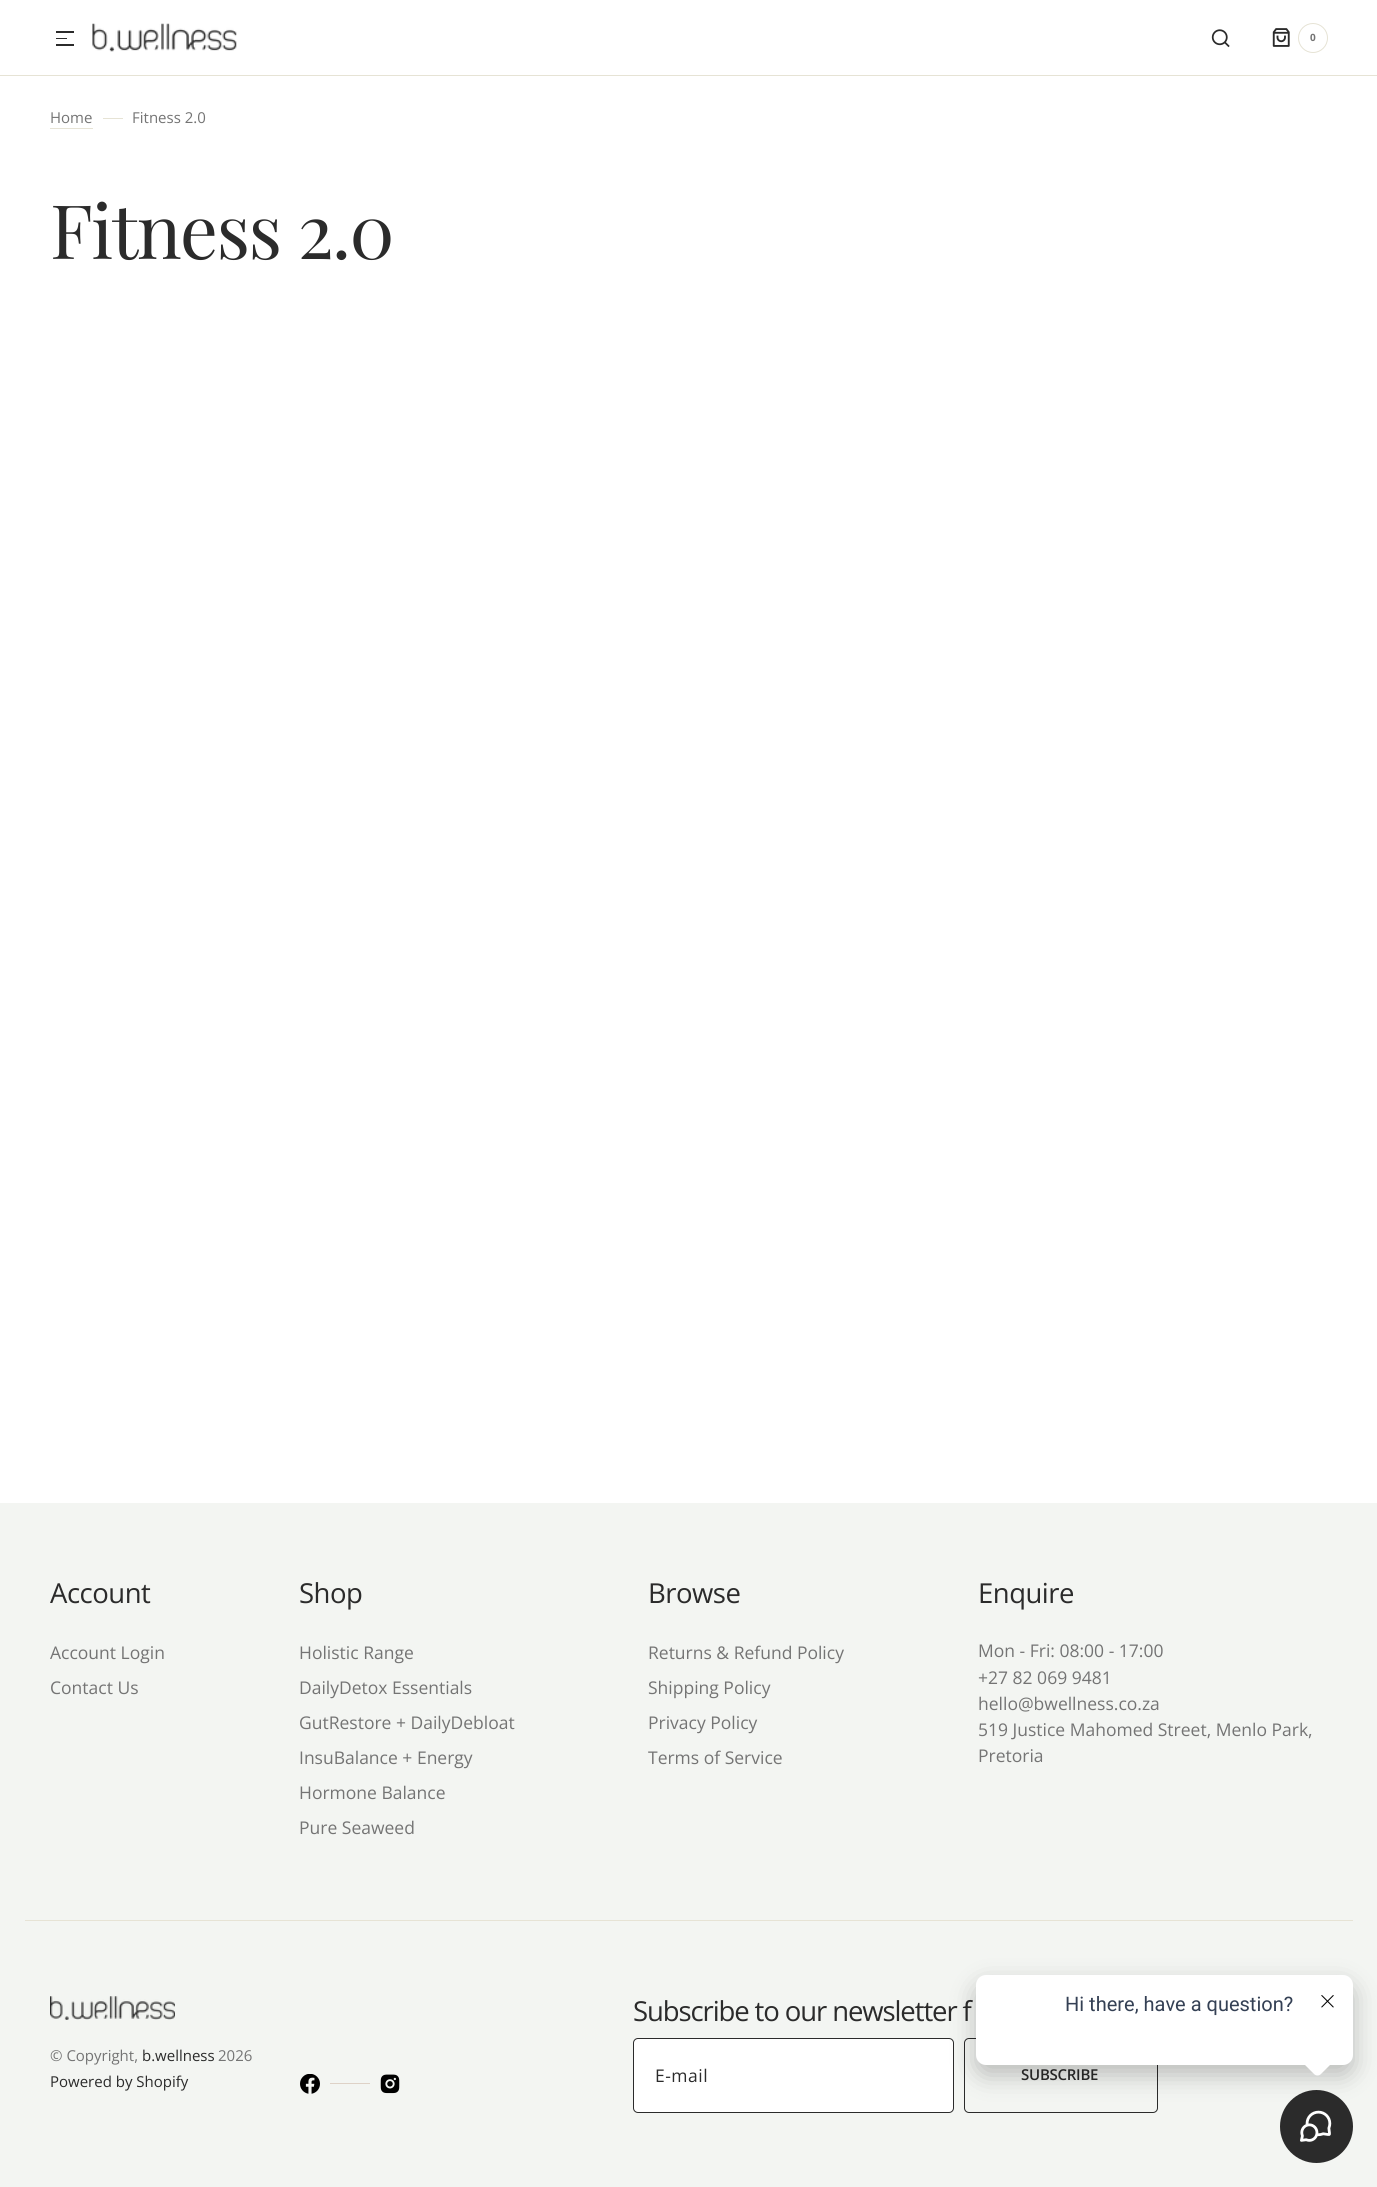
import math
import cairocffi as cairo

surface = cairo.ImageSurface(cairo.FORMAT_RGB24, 1377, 2187)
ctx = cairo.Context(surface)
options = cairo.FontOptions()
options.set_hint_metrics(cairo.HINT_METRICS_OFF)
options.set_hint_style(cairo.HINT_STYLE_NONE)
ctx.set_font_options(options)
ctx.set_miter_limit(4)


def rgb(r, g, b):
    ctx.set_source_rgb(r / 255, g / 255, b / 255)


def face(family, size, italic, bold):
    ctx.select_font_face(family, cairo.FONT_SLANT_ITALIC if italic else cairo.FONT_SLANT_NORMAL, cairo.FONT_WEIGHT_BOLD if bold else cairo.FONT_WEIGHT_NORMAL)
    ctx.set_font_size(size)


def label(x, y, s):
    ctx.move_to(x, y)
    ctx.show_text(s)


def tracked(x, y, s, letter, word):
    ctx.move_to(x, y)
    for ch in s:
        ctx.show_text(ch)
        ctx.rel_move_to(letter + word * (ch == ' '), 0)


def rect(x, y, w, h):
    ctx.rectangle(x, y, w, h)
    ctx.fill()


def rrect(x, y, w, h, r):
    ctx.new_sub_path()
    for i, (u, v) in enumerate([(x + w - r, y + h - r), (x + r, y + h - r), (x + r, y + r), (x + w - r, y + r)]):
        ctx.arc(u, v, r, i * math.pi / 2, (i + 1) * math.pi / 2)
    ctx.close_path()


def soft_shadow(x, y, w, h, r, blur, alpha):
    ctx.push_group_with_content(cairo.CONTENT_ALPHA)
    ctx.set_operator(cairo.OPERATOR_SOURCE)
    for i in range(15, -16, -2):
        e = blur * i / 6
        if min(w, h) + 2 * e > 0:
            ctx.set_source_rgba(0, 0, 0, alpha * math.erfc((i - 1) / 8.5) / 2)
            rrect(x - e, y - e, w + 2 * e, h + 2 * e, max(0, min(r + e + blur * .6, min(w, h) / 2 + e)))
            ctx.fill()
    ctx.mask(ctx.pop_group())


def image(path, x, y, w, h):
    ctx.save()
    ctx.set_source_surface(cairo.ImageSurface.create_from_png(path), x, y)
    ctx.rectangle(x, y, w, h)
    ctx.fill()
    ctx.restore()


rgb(255, 255, 255)
ctx.paint()
rgb(43, 43, 43)
rect(56, 31, 18, 2)
rect(56, 38, 11, 1)
rect(56, 44, 18, 2)
image('image0.png', 92, 23, 145, 29)
image('image1.png', 1211, 29, 19, 19)
image('image2.png', 1272, 28, 18, 19)
ctx.arc(1313, 38, 14.5, 0, 2 * math.pi)
rgb(230, 227, 213)
ctx.set_line_width(1)
ctx.stroke()
face('Open Sans', 10, 0, 1)
rgb(116, 116, 116)
label(1310, 41, '0')
rgb(230, 227, 213)
rect(0, 75, 1377, 1)
face('Open Sans', 15, 0, 0)
rgb(116, 116, 116)
label(50, 123, 'Home')
rgb(230, 227, 213)
rect(50, 128, 43, 1)
rect(103, 118, 20, 1)
rgb(116, 116, 116)
label(132, 123, 'Fitness 2.0')
face('Playfair Display', 75, 0, 0)
rgb(43, 43, 43)
tracked(50, 259, 'Fitness 2.0', -1.5, 0)
rgb(243, 245, 242)
rect(0, 1503, 1377, 684)
face('Open Sans', 27.5, 0, 0)
rgb(43, 43, 43)
tracked(50, 1603, 'Account', -0.5, 0)
face('Open Sans', 17.5, 0, 0)
rgb(116, 116, 116)
label(50, 1659, 'Account Login')
label(50, 1694, 'Contact Us')
face('Open Sans', 27.5, 0, 0)
rgb(43, 43, 43)
tracked(299, 1603, 'Shop', -0.5, 0)
face('Open Sans', 17.5, 0, 0)
rgb(116, 116, 116)
label(299, 1659, 'Holistic Range')
label(299, 1694, 'DailyDetox Essentials')
label(299, 1729, 'GutRestore + DailyDebloat')
label(299, 1764, 'InsuBalance + Energy')
label(299, 1799, 'Hormone Balance')
label(299, 1834, 'Pure Seaweed')
face('Open Sans', 27.5, 0, 0)
rgb(43, 43, 43)
tracked(648, 1603, 'Browse', -0.5, 0)
face('Open Sans', 17.5, 0, 0)
rgb(116, 116, 116)
label(648, 1659, 'Returns & Refund Policy')
label(648, 1694, 'Shipping Policy')
label(648, 1729, 'Privacy Policy')
label(648, 1764, 'Terms of Service')
face('Open Sans', 27.5, 0, 0)
rgb(43, 43, 43)
tracked(978, 1603, 'Enquire', -0.5, 0)
face('Open Sans', 17.5, 0, 0)
rgb(116, 116, 116)
label(978, 1657, 'Mon - Fri: 08:00 - 17:00')
label(978, 1684, '+27 82 069 9481')
label(978, 1710, 'hello@bwellness.co.za')
label(978, 1736, '519 Justice Mahomed Street, Menlo Park,')
label(978, 1762, 'Pretoria')
rgb(230, 227, 213)
rect(25, 1920, 1328, 1)
image('image3.png', 50, 1996, 125, 24)
face('Open Sans', 15, 0, 0)
rgb(116, 116, 116)
label(50, 2061, '© Copyright,')
rgb(43, 43, 43)
label(142, 2061, 'b.wellness')
rgb(116, 116, 116)
label(218, 2061, '2026')
rgb(43, 43, 43)
label(50, 2087, 'Powered by Shopify')
image('image4.png', 300, 2074, 20, 20)
rgb(222, 210, 199)
rect(330, 2083, 40, 1)
image('image5.png', 380, 2074, 20, 20)
face('Open Sans', 27.5, 0, 0)
rgb(43, 43, 43)
tracked(633, 2021, 'Subscribe to our newsletter f', -1.1, 0)
rgb(255, 255, 255)
rrect(633.5, 2038.5, 320, 74, 4.5)
ctx.fill_preserve()
rgb(43, 43, 43)
ctx.stroke()
face('Open Sans', 17.5, 0, 0)
tracked(655, 2082, 'E-mail', 0.5, 0)
rrect(964.5, 2038.5, 193, 74, 4.5)
ctx.stroke()
face('Open Sans SemiBold', 15, 0, 0)
tracked(1021, 2080, 'SUBSCRIBE', -0.25, 0)
ctx.new_path()
ctx.arc(1316.5, 2126.5, 36.5, 0, 2 * math.pi)
ctx.fill()
image('image7.png', 1300, 2110, 32, 32)
rgb(0, 0, 0)
soft_shadow(976, 1985, 377, 90, 10, 12.5, 0.24)
rgb(255, 255, 255)
rrect(976, 1975, 377, 90, 10)
ctx.fill()
face('Roboto', 20, 0, 0)
rgb(52, 64, 84)
label(1065, 2011, 'Hi there, have a question?')
rgb(255, 255, 255)
ctx.new_path()
ctx.move_to(1321, 2046)
ctx.line_to(1331.5, 2056.5)
ctx.curve_to(1333.5, 2058.5, 1333.5, 2061.5, 1331.5, 2063.5)
ctx.line_to(1321, 2074)
ctx.curve_to(1319, 2076, 1316, 2076, 1314, 2074)
ctx.line_to(1303.5, 2063.5)
ctx.curve_to(1301.5, 2061.5, 1301.5, 2058.5, 1303.5, 2056.5)
ctx.line_to(1314, 2046)
ctx.curve_to(1316, 2044, 1319, 2044, 1321, 2046)
ctx.close_path()
ctx.fill()
image('image6.png', 1321, 1995, 13, 13)
surface.write_to_png('render.png')
